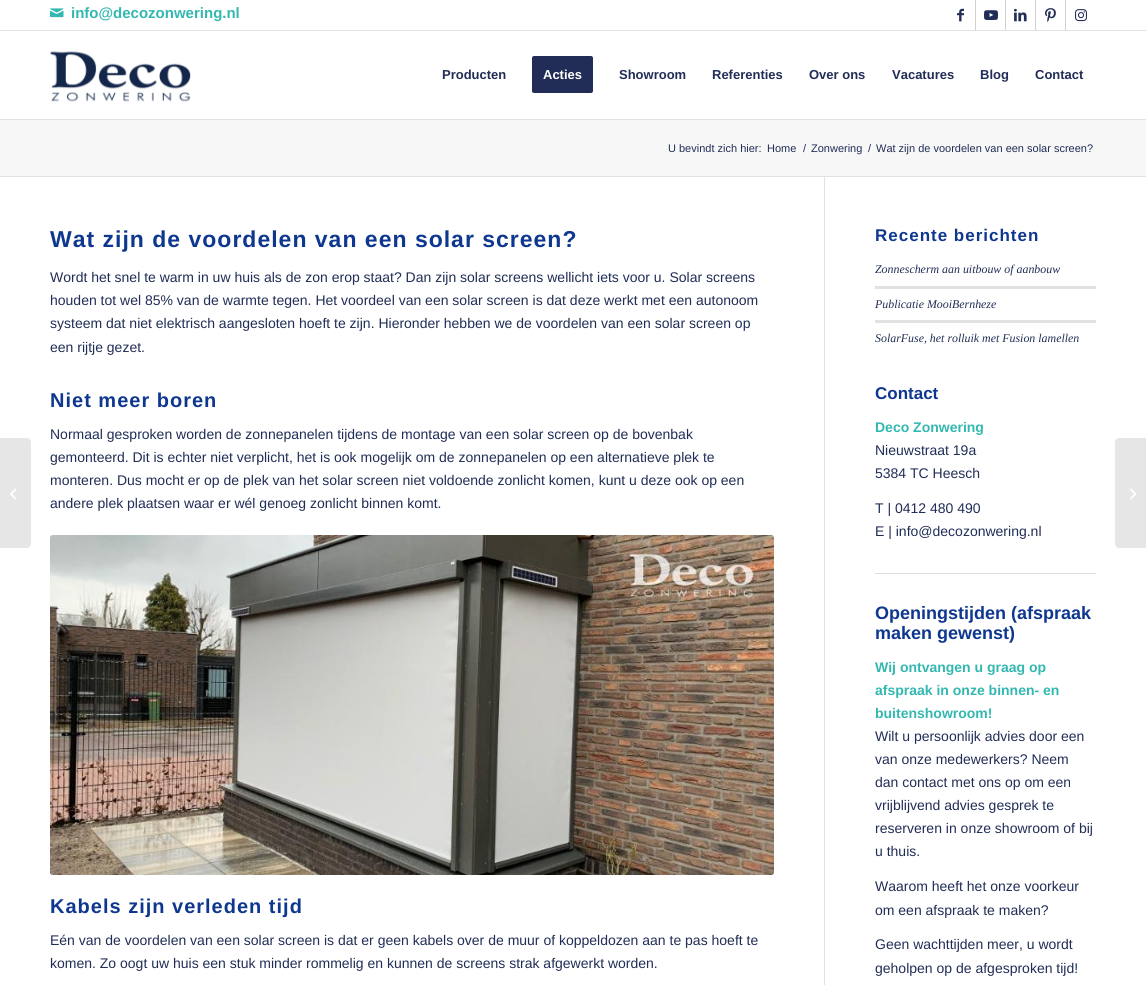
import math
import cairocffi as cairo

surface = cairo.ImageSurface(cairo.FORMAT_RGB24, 1146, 985)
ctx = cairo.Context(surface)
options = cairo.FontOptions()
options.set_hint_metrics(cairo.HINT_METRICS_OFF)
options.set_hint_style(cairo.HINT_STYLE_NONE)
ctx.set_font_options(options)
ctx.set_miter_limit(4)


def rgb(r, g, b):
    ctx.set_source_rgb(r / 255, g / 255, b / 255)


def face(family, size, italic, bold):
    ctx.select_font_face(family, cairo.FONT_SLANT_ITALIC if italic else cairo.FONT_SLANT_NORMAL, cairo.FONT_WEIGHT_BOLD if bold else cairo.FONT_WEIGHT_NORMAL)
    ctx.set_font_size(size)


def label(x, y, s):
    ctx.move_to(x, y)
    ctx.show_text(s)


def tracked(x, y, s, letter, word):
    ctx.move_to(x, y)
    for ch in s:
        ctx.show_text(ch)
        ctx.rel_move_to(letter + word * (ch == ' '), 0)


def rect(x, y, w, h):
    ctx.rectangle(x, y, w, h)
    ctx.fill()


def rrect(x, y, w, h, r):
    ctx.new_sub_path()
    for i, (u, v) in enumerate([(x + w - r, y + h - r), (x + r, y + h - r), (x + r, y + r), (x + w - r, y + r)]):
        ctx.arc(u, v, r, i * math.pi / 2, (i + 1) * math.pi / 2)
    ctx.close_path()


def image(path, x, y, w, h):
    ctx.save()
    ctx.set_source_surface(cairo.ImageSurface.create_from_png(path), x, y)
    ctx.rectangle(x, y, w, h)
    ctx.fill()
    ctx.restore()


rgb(255, 255, 255)
ctx.paint()
rgb(225, 225, 225)
rect(0, 30, 1146, 1)
image('image0.png', 50, 8, 14, 10)
face('Liberation Sans', 15, 0, 1)
rgb(51, 184, 177)
label(71, 18, 'info@decozonwering.nl')
rgb(209, 209, 209)
rect(975, 0, 1, 30)
image('image1.png', 957, 8, 7, 14)
rect(1005, 0, 1, 30)
image('image2.png', 984, 10, 14, 10)
rect(1035, 0, 1, 30)
image('image3.png', 1014, 8, 13, 14)
rect(1065, 0, 1, 30)
image('image4.png', 1045, 8, 11, 14)
image('image5.png', 1075, 9, 12, 13)
rgb(225, 225, 225)
rect(0, 119, 1146, 1)
image('image6.png', 50, 51, 141, 51)
face('Liberation Sans', 13, 0, 1)
rgb(33, 45, 86)
label(442, 79, 'Producten')
rrect(533, 57, 59, 35, 1)
ctx.fill_preserve()
ctx.stroke()
rgb(255, 255, 255)
label(543, 79, 'Acties')
rgb(33, 45, 86)
label(619, 79, 'Showroom')
label(712, 79, 'Referenties')
label(809, 79, 'Over ons')
label(892, 79, 'Vacatures')
label(980, 79, 'Blog')
label(1035, 79, 'Contact')
rgb(230, 230, 230)
ctx.new_path()
ctx.move_to(0, 438)
ctx.line_to(27, 438)
ctx.curve_to(29, 438, 31, 440, 31, 442)
ctx.line_to(31, 544)
ctx.curve_to(31, 546, 29, 548, 27, 548)
ctx.line_to(0, 548)
ctx.close_path()
ctx.fill()
image('image7.png', 10, 488, 6, 12)
rgb(247, 247, 247)
rect(0, 120, 1146, 56)
face('Liberation Sans', 11, 0, 0)
rgb(33, 45, 86)
label(668, 152, 'U bevindt zich hier:')
label(767, 152, 'Home')
label(803, 152, '/')
label(811, 152, 'Zonwering')
label(868, 152, '/')
label(876, 152, 'Wat zijn de voordelen van een solar screen?')
rgb(225, 225, 225)
rect(0, 176, 1146, 1)
rect(824, 177, 1, 808)
face('Liberation Sans', 23, 0, 1)
rgb(14, 55, 143)
tracked(50, 247, 'Wat zijn de voordelen van een solar screen?', 1, 0)
face('Liberation Sans', 14, 0, 0)
rgb(33, 45, 86)
label(50, 282, 'Wordt het snel te warm in uw huis als de zon erop staat? Dan zijn solar screens wellicht iets voor u. Solar screens')
label(50, 305, 'houden tot wel 85% van de warmte tegen. Het voordeel van een solar screen is dat deze werkt met een autonoom')
label(50, 328, 'systeem dat niet elektrisch aangesloten hoeft te zijn. Hieronder hebben we de voordelen van een solar screen op')
label(50, 352, 'een rijtje gezet.')
face('Liberation Sans', 20, 0, 1)
rgb(14, 55, 143)
tracked(50, 407, 'Niet meer boren', 1, 0)
face('Liberation Sans', 14, 0, 0)
rgb(33, 45, 86)
label(50, 439, 'Normaal gesproken worden de zonnepanelen tijdens de montage van een solar screen op de bovenbak')
label(50, 462, 'gemonteerd. Dit is echter niet verplicht, het is ook mogelijk om de zonnepanelen op een alternatieve plek te')
label(50, 485, 'monteren. Dus mocht er op de plek van het solar screen niet voldoende zonlicht komen, kunt u deze ook op een')
label(50, 508, 'andere plek plaatsen waar er wél genoeg zonlicht binnen komt.')
image('image8.png', 50, 535, 724, 340)
face('Liberation Sans', 20, 0, 1)
rgb(14, 55, 143)
tracked(50, 913, 'Kabels zijn verleden tijd', 1, 0)
face('Liberation Sans', 14, 0, 0)
rgb(33, 45, 86)
label(50, 945, 'Eén van de voordelen van een solar screen is dat er geen kabels over de muur of koppeldozen aan te pas hoeft te')
label(50, 968, 'komen. Zo oogt uw huis een stuk minder rommelig en kunnen de screens strak afgewerkt worden.')
face('Liberation Sans', 17, 0, 1)
rgb(14, 55, 143)
tracked(875, 241, 'Recente berichten', 1, 0)
face('Liberation Serif', 11.9, 1, 0)
rgb(33, 45, 86)
label(875, 273, 'Zonnescherm aan uitbouw of aanbouw')
rgb(225, 225, 225)
rect(875, 286, 221, 3)
rgb(33, 45, 86)
label(875, 308, 'Publicatie MooiBernheze')
rgb(225, 225, 225)
rect(875, 320, 221, 3)
rgb(33, 45, 86)
label(875, 342, 'SolarFuse, het rolluik met Fusion lamellen')
face('Liberation Sans', 17, 0, 1)
rgb(14, 55, 143)
label(875, 399, 'Contact')
face('Liberation Sans', 14, 0, 1)
rgb(51, 184, 177)
label(875, 432, 'Deco Zonwering')
face('Liberation Sans', 14, 0, 0)
rgb(33, 45, 86)
label(875, 455, 'Nieuwstraat 19a')
label(875, 478, '5384 TC Heesch')
label(875, 513, 'T | 0412 480 490')
label(875, 536, 'E | info@decozonwering.nl')
rgb(221, 221, 221)
rect(875, 573, 221, 1)
face('Liberation Sans', 18, 0, 1)
rgb(14, 55, 143)
label(875, 619, 'Openingstijden (afspraak')
label(875, 639, 'maken gewenst)')
face('Liberation Sans', 14, 0, 1)
rgb(51, 184, 177)
label(875, 672, 'Wij ontvangen u graag op')
label(875, 695, 'afspraak in onze binnen- en')
label(875, 718, 'buitenshowroom!')
face('Liberation Sans', 14, 0, 0)
rgb(33, 45, 86)
label(875, 741, 'Wilt u persoonlijk advies door een')
label(875, 764, 'van onze medewerkers? Neem')
label(875, 787, 'dan contact met ons op om een')
label(875, 810, 'vrijblijvend advies gesprek te')
label(875, 833, 'reserveren in onze showroom of bij')
label(875, 856, 'u thuis.')
label(875, 891, 'Waarom heeft het onze voorkeur')
label(875, 915, 'om een afspraak te maken?')
label(875, 949, 'Geen wachttijden meer, u wordt')
label(875, 973, 'geholpen op de afgesproken tijd!')
rgb(230, 230, 230)
ctx.new_path()
ctx.move_to(1119, 438)
ctx.line_to(1146, 438)
ctx.line_to(1146, 548)
ctx.line_to(1119, 548)
ctx.curve_to(1117, 548, 1115, 546, 1115, 544)
ctx.line_to(1115, 442)
ctx.curve_to(1115, 440, 1117, 438, 1119, 438)
ctx.close_path()
ctx.fill()
image('image9.png', 1130, 488, 6, 12)
surface.write_to_png('render.png')
